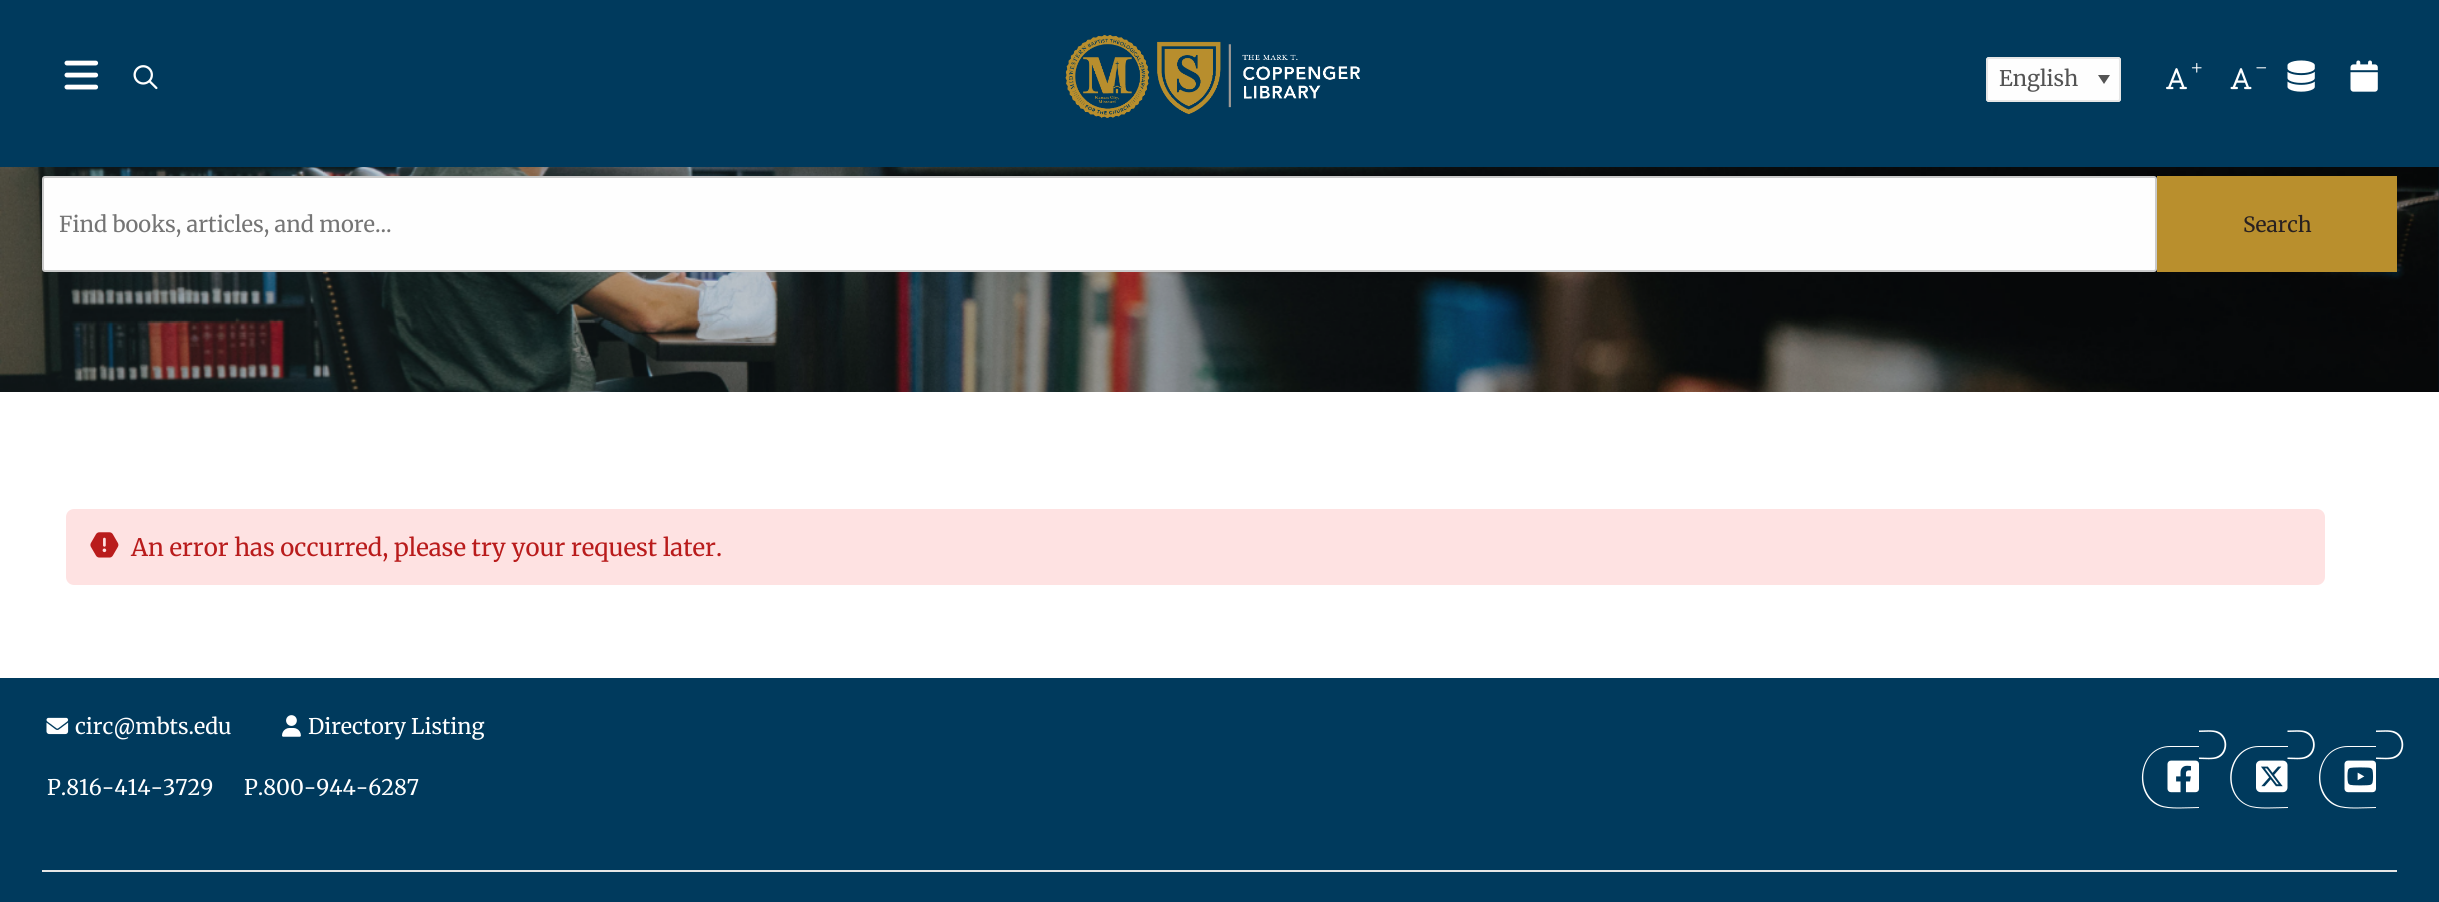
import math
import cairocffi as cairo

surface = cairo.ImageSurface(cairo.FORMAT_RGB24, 2439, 902)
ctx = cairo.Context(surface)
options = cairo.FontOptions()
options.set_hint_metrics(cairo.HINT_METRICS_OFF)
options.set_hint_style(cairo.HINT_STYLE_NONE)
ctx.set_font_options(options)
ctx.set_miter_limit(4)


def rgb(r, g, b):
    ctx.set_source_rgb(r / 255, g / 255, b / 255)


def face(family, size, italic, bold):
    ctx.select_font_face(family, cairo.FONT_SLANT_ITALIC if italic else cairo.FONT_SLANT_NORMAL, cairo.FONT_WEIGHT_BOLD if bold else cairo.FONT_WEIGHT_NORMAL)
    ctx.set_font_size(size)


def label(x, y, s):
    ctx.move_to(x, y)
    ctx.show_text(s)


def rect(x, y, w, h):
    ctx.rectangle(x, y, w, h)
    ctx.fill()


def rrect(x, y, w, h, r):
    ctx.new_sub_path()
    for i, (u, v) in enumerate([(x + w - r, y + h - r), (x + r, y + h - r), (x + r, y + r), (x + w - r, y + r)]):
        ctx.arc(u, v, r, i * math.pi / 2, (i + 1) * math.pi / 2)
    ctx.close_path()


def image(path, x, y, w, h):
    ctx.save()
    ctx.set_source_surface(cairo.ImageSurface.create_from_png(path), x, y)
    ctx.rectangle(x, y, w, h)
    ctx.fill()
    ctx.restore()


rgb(0, 58, 93)
ctx.paint()
image('image0.png', 64, 60, 35, 30)
image('image1.png', 133, 65, 25, 25)
image('image2.png', 1065, 35, 295, 83)
rgb(254, 254, 254)
rrect(1986, 57, 135, 45, 3)
ctx.fill()
rgb(84, 84, 84)
ctx.new_path()
ctx.move_to(2098, 75)
ctx.line_to(2110, 75)
ctx.line_to(2104, 84)
ctx.close_path()
ctx.fill()
rrect(1987, 58, 133, 43, 2)
rgb(230, 230, 230)
ctx.stroke()
face('Merriweather Light', 21.5, 0, 0)
rgb(84, 84, 84)
label(1999, 86, 'English')
image('image3.png', 2166, 68, 21, 22)
image('image4.png', 2191, 63, 11, 10)
image('image5.png', 2230, 68, 22, 22)
image('image6.png', 2256, 67, 11, 2)
image('image7.png', 2287, 60, 28, 32)
image('image8.png', 2350, 60, 28, 32)
image('image9.png', 0, 167, 2439, 225)
rgb(254, 254, 254)
rrect(43, 177, 2113, 94, 2)
ctx.fill_preserve()
rgb(202, 202, 202)
ctx.stroke()
face('Merriweather Light', 21.9, 0, 0)
rgb(117, 117, 117)
label(59, 232, 'Find books, articles, and more...')
rgb(185, 143, 45)
rect(2157, 176, 240, 96)
face('Merriweather Light', 21, 0, 0)
rgb(40, 32, 32)
label(2243, 232, 'Search')
rgb(255, 255, 255)
rect(0, 392, 2439, 286)
rgb(254, 226, 226)
rrect(66, 509, 2259, 76, 8)
ctx.fill()
image('image10.png', 90, 532, 29, 26)
face('Merriweather Light', 24, 0, 0)
rgb(185, 28, 28)
label(131, 556, 'An error has occurred, please try your request later.')
image('image11.png', 46, 717, 23, 18)
face('Merriweather Light', 21.5, 0, 0)
rgb(255, 255, 255)
label(75, 734, 'circ@mbts.edu')
image('image12.png', 282, 715, 19, 22)
label(308, 734, 'Directory Listing')
label(47, 795, 'P.816-414-3729')
label(244, 795, 'P.800-944-6287')
ctx.set_fill_rule(cairo.FILL_RULE_EVEN_ODD)
ctx.new_path()
ctx.move_to(2170, 746)
ctx.line_to(2199, 746)
ctx.line_to(2199, 808)
ctx.curve_to(2188, 808, 2169, 810, 2159, 806)
ctx.curve_to(2132, 795, 2138, 746, 2170, 746)
ctx.close_path()
ctx.move_to(2170, 747)
ctx.line_to(2199, 747)
ctx.line_to(2199, 807)
ctx.curve_to(2189, 807, 2169, 809, 2160, 805)
ctx.curve_to(2134, 794, 2139, 747, 2170, 747)
ctx.close_path()
ctx.fill()
ctx.new_path()
ctx.move_to(2199, 730.5)
ctx.curve_to(2204, 730.5, 2213.5, 729.5, 2218, 731.5)
ctx.curve_to(2229, 736, 2229, 753.5, 2218, 758)
ctx.curve_to(2213.5, 760, 2204, 759, 2199, 759)
ctx.close_path()
ctx.move_to(2199, 732)
ctx.curve_to(2204, 732, 2213, 731, 2217, 733)
ctx.curve_to(2227, 737, 2227, 752.5, 2217, 756.5)
ctx.curve_to(2213, 758.5, 2204, 757.5, 2199, 757.5)
ctx.close_path()
ctx.fill()
image('image13.png', 2167, 760, 32, 33)
ctx.new_path()
ctx.move_to(2259, 746)
ctx.line_to(2288, 746)
ctx.line_to(2288, 808)
ctx.curve_to(2277, 808, 2257, 810, 2248, 806)
ctx.curve_to(2220, 795, 2226, 746, 2259, 746)
ctx.close_path()
ctx.move_to(2259, 747)
ctx.line_to(2288, 747)
ctx.line_to(2288, 807)
ctx.curve_to(2277, 807, 2257, 809, 2248, 805)
ctx.curve_to(2222, 794, 2228, 747, 2259, 747)
ctx.close_path()
ctx.fill()
ctx.new_path()
ctx.move_to(2287.5, 730.5)
ctx.curve_to(2292.5, 730.5, 2302, 729.5, 2306.5, 731.5)
ctx.curve_to(2317.5, 736, 2317.5, 753.5, 2306.5, 758)
ctx.curve_to(2302, 760, 2292.5, 759, 2287.5, 759)
ctx.close_path()
ctx.move_to(2287.5, 732)
ctx.curve_to(2292.5, 732, 2301.5, 731, 2305.5, 733)
ctx.curve_to(2315.5, 737, 2315.5, 752.5, 2305.5, 756.5)
ctx.curve_to(2301.5, 758.5, 2292.5, 757.5, 2287.5, 757.5)
ctx.close_path()
ctx.fill()
image('image14.png', 2256, 760, 32, 33)
ctx.new_path()
ctx.move_to(2348, 746)
ctx.line_to(2376, 746)
ctx.line_to(2376, 808)
ctx.curve_to(2365, 808, 2346, 810, 2336, 806)
ctx.curve_to(2309, 795, 2315, 746, 2348, 746)
ctx.close_path()
ctx.move_to(2348, 747)
ctx.line_to(2376, 747)
ctx.line_to(2376, 807)
ctx.curve_to(2366, 807, 2346, 809, 2337, 805)
ctx.curve_to(2311, 794, 2316, 747, 2348, 747)
ctx.close_path()
ctx.fill()
ctx.new_path()
ctx.move_to(2376, 730.5)
ctx.curve_to(2381, 730.5, 2390.5, 729.5, 2395, 731.5)
ctx.curve_to(2406, 736, 2406, 753.5, 2395, 758)
ctx.curve_to(2390.5, 760, 2381, 759, 2376, 759)
ctx.close_path()
ctx.move_to(2376, 732)
ctx.curve_to(2381, 732, 2390, 731, 2394, 733)
ctx.curve_to(2404, 737, 2404, 752.5, 2394, 756.5)
ctx.curve_to(2390, 758.5, 2381, 757.5, 2376, 757.5)
ctx.close_path()
ctx.fill()
image('image15.png', 2344, 760, 32, 33)
rgb(230, 230, 230)
rect(42, 870, 2355, 2)
surface.write_to_png('render.png')
